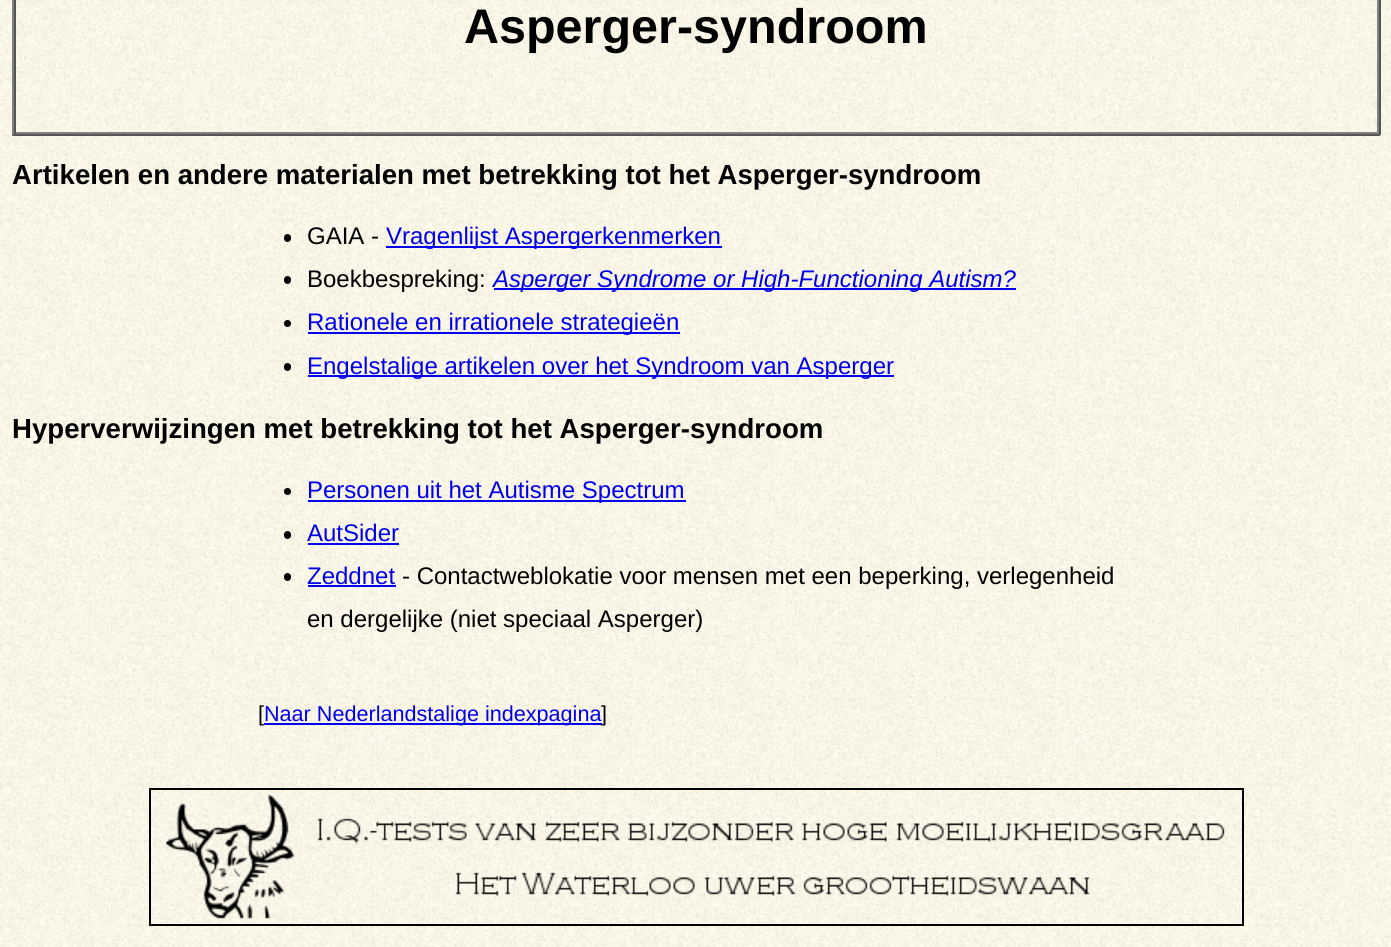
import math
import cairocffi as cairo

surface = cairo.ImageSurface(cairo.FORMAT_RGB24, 1391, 947)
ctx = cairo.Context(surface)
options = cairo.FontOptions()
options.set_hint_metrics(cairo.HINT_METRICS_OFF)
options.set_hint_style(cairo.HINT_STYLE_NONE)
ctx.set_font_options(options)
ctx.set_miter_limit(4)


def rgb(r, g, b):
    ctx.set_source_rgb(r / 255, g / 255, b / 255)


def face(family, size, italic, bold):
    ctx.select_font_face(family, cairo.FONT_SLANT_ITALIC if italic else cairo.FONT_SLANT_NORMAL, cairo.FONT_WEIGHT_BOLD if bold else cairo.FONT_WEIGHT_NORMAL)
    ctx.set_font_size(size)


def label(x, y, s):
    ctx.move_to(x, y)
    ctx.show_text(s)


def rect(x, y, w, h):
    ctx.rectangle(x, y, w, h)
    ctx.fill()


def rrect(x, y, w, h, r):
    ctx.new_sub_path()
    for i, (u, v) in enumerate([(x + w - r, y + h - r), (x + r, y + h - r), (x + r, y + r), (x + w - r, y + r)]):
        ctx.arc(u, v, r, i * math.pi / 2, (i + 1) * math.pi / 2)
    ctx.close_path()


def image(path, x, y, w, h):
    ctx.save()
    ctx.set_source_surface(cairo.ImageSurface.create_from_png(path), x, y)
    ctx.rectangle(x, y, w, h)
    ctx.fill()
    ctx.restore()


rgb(255, 255, 255)
ctx.paint()
image('image0.png', 0, 0, 1391, 947)
rgb(85, 85, 85)
rect(1379, 0, 2, 135)
rect(12, 134, 1368, 2)
rgb(128, 128, 128)
rect(12, 0, 2, 135)
rect(1377, 0, 2, 134)
rect(14, 132, 1365, 2)
rgb(85, 85, 85)
rect(14, 0, 2, 134)
face('Liberation Sans', 48.5, 0, 1)
rgb(0, 0, 0)
label(464, 43, 'Asperger-syndroom')
face('Liberation Sans', 27.6, 0, 1)
label(12, 184, 'Artikelen en andere materialen met betrekking tot het Asperger-syndroom')
rrect(284, 234, 7, 8, 3.5)
ctx.fill()
face('Liberation Sans', 24, 0, 0)
label(307, 244, 'GAIA -')
rgb(0, 0, 238)
rect(386, 246, 336, 2)
label(386, 244, 'Vragenlijst Aspergerkenmerken')
rgb(0, 0, 0)
rrect(284, 276, 7, 8, 3.5)
ctx.fill()
label(307, 287, 'Boekbespreking:')
rgb(0, 0, 238)
rect(494, 288, 522, 2)
face('Liberation Sans', 24, 1, 0)
label(493, 287, 'Asperger Syndrome or High-Functioning Autism?')
rgb(0, 0, 0)
ctx.new_path()
ctx.arc(287.5, 323.5, 3.5, 0, 2 * math.pi)
ctx.fill()
rgb(0, 0, 238)
rect(308, 332, 372, 2)
face('Liberation Sans', 24, 0, 0)
label(307, 330, 'Rationele en irrationele strategieën')
rgb(0, 0, 0)
rrect(284, 363, 7, 8, 3.5)
ctx.fill()
rgb(0, 0, 238)
rect(308, 375, 586, 2)
label(307, 374, 'Engelstalige artikelen over het Syndroom van Asperger')
face('Liberation Sans', 27.6, 0, 1)
rgb(0, 0, 0)
label(12, 438, 'Hyperverwijzingen met betrekking tot het Asperger-syndroom')
ctx.new_path()
ctx.arc(287.5, 491.5, 3.5, 0, 2 * math.pi)
ctx.fill()
rgb(0, 0, 238)
rect(308, 500, 378, 2)
face('Liberation Sans', 24, 0, 0)
label(307, 498, 'Personen uit het Autisme Spectrum')
rgb(0, 0, 0)
rrect(284, 531, 7, 8, 3.5)
ctx.fill()
rgb(0, 0, 238)
label(307, 541, 'AutSider')
rect(308, 543, 91, 2)
rgb(0, 0, 0)
rrect(284, 573, 7, 8, 3.5)
ctx.fill()
rgb(0, 0, 238)
label(307, 584, 'Zeddnet')
rect(308, 585, 88, 2)
rgb(0, 0, 0)
label(402, 584, '- Contactweblokatie voor mensen met een beperking, verlegenheid')
label(307, 627, 'en dergelijke (niet speciaal Asperger)')
face('Liberation Sans', 21.6, 0, 0)
label(258, 721, '[')
rgb(0, 0, 238)
rect(264, 723, 338, 2)
label(264, 721, 'Naar Nederlandstalige indexpagina')
rgb(0, 0, 0)
label(601, 721, ']')
ctx.rectangle(150, 789, 1093, 136)
ctx.stroke()
image('image1.png', 166, 794, 1059, 125)
surface.write_to_png('render.png')
